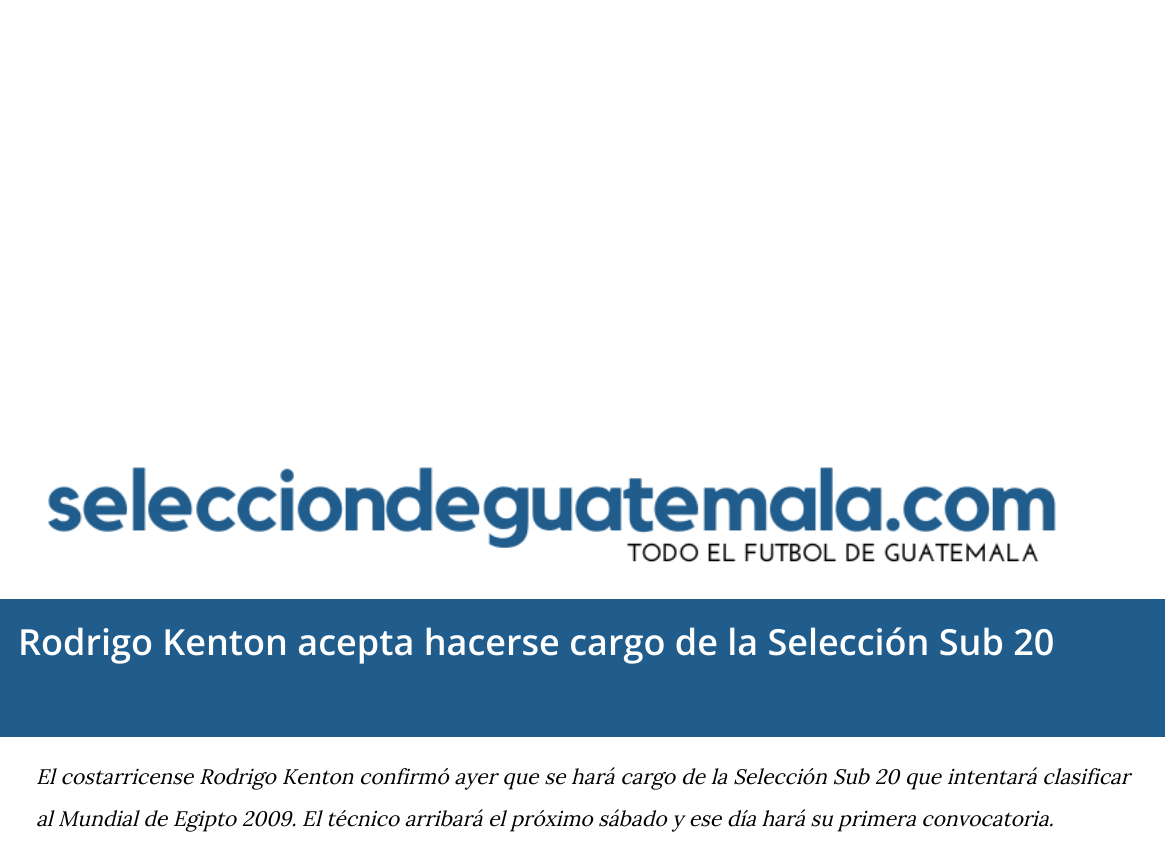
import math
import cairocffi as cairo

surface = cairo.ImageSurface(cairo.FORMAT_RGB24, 1165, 851)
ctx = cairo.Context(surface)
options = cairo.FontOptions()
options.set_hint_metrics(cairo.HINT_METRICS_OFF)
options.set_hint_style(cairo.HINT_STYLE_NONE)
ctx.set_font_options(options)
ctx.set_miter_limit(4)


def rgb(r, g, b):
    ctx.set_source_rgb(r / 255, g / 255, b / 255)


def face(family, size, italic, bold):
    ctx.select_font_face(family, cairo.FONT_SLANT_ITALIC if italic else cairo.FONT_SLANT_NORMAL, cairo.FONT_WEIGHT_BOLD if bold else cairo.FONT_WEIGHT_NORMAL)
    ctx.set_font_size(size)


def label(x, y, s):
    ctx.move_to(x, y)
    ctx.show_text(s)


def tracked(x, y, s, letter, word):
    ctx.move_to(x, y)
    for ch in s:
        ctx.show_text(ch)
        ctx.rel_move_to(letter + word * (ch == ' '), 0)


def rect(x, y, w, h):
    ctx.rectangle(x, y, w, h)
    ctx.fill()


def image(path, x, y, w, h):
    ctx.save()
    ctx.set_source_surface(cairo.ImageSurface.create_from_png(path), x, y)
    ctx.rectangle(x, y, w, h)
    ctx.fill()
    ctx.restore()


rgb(255, 255, 255)
ctx.paint()
image('image0.png', 48, 467, 1008, 96)
rgb(32, 92, 140)
rect(0, 599, 1165, 138)
face('Open Sans SemiBold', 36, 0, 0)
rgb(255, 255, 255)
label(18, 655, 'Rodrigo Kenton acepta hacerse cargo de la Selección Sub 20')
face('Lora', 21, 1, 0)
rgb(0, 0, 0)
tracked(36, 784, 'El costarricense Rodrigo Kenton confirmó ayer que se hará cargo de la Selección Sub 20 que intentará clasificar', 0, 0.25)
label(36, 826, 'al Mundial de Egipto 2009. El técnico arribará el próximo sábado y ese día hará su primera convocatoria.')
surface.write_to_png('render.png')
